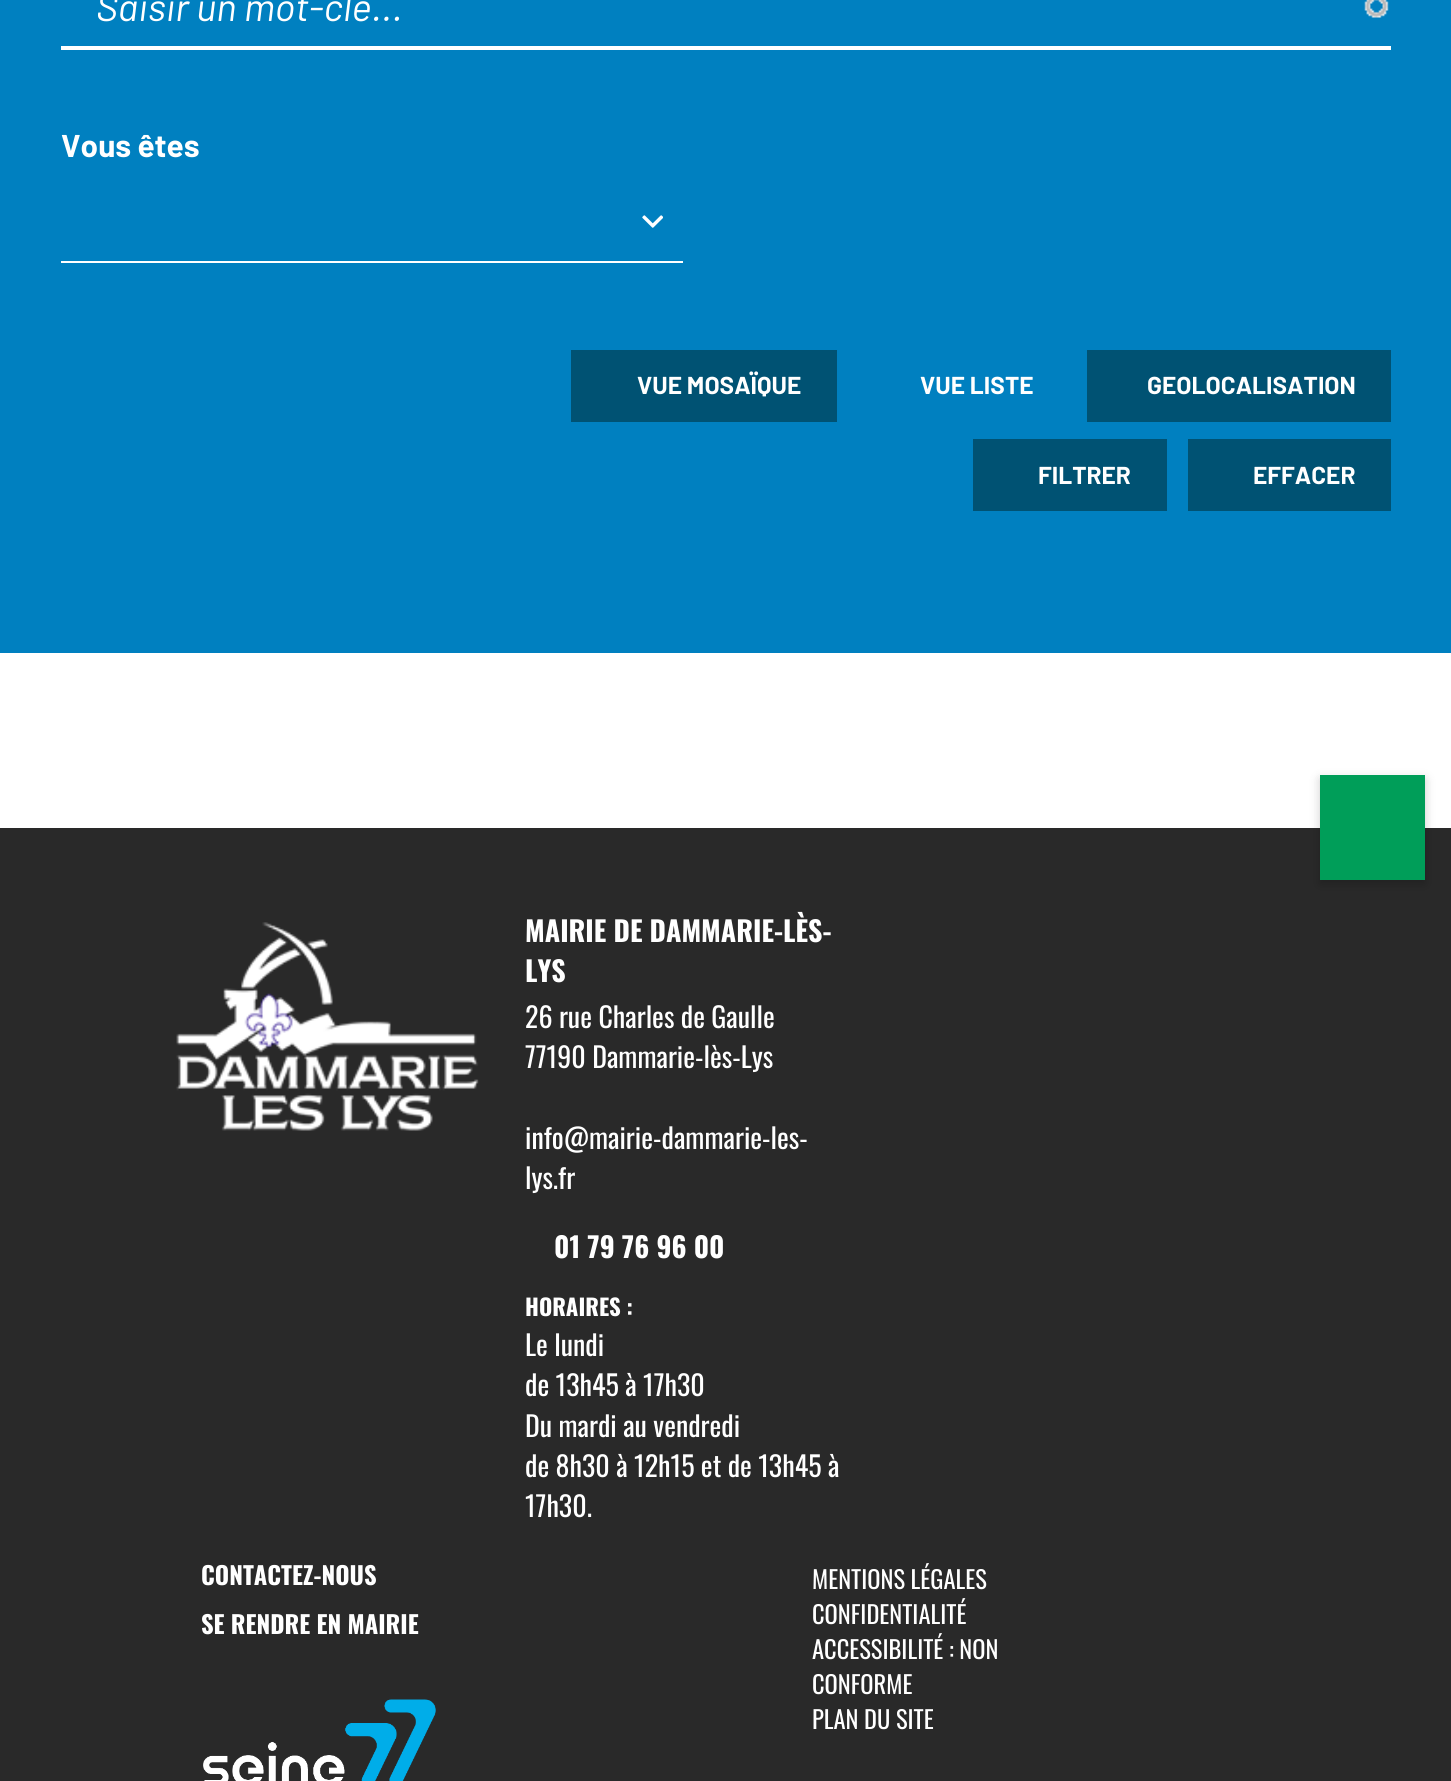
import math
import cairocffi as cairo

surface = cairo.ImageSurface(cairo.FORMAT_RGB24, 1451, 1781)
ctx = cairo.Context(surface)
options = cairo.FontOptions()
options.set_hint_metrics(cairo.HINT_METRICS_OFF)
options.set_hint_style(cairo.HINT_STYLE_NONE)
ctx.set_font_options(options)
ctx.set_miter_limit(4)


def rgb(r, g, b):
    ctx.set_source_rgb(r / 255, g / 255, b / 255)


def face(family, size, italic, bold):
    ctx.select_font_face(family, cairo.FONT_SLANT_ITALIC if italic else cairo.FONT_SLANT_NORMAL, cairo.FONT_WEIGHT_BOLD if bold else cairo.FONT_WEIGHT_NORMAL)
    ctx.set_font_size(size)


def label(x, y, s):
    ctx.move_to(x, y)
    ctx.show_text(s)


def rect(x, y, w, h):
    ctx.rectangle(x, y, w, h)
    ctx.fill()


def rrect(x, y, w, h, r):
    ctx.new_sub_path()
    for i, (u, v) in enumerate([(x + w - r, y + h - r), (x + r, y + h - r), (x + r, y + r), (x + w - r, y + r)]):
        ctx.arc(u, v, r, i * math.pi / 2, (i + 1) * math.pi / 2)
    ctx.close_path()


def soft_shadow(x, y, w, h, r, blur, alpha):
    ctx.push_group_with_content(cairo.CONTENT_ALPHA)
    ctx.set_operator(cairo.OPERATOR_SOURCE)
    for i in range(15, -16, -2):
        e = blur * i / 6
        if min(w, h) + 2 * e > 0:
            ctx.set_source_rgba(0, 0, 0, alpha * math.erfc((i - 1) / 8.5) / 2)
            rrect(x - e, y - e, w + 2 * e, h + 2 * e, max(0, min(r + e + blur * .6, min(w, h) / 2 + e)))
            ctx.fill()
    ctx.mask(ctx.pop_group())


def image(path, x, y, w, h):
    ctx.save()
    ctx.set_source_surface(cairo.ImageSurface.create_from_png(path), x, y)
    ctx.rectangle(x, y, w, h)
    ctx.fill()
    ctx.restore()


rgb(255, 255, 255)
ctx.paint()
rgb(0, 128, 192)
rect(0, 0, 1451, 653)
image('image0.png', 1364, 0, 25, 18)
rgb(255, 255, 255)
rect(61, 46, 1330, 4)
face('Barlow', 38.5, 1, 0)
label(96, 21, 'Saisir un mot-clé...')
face('Barlow', 31.5, 0, 1)
label(61, 157, 'Vous êtes')
image('image1.png', 642, 215, 21, 13)
rect(61, 261, 622, 2)
rgb(0, 82, 115)
rect(571, 350, 266, 72)
face('Barlow', 24.5, 0, 1)
rgb(255, 255, 255)
label(637, 394, 'VUE MOSAÏQUE')
label(920, 394, 'VUE LISTE')
rgb(0, 82, 115)
rect(1087, 350, 304, 72)
rgb(255, 255, 255)
label(1147, 394, 'GEOLOCALISATION')
rgb(0, 82, 115)
rect(973, 439, 194, 72)
rgb(255, 255, 255)
label(1038, 484, 'FILTRER')
rgb(0, 82, 115)
rect(1188, 439, 203, 72)
rgb(255, 255, 255)
label(1253, 484, 'EFFACER')
rgb(41, 41, 41)
rect(0, 828, 1451, 953)
rgb(0, 0, 0)
soft_shadow(1320, 779, 105, 105, 0, 5, 0.2)
rgb(0, 158, 89)
rect(1320, 775, 105, 105)
image('image2.png', 176, 922, 303, 209)
face('Oswald', 28, 0, 1)
rgb(255, 255, 255)
label(525, 942, 'MAIRIE DE DAMMARIE-LÈS-')
label(525, 982, 'LYS')
face('Oswald', 28, 0, 0)
label(525, 1028, '26 rue Charles de Gaulle')
label(525, 1068, '77190 Dammarie-lès-Lys')
label(525, 1149, 'info@mairie-dammarie-les-')
label(525, 1189, 'lys.fr')
face('Oswald', 28, 0, 1)
label(554, 1258, '01 79 76 96 00')
face('Oswald', 22.75, 0, 1)
label(525, 1316, 'HORAIRES :')
face('Oswald', 28, 0, 0)
label(525, 1356, 'Le lundi')
label(525, 1396, 'de 13h45 à 17h30')
label(525, 1437, 'Du mardi au vendredi')
label(525, 1477, 'de 8h30 à 12h15 et de 13h45 à')
label(525, 1517, '17h30.')
face('Oswald', 24.5, 0, 1)
label(201, 1585, 'CONTACTEZ-NOUS')
label(201, 1634, 'SE RENDRE EN MAIRIE')
image('image3.png', 203, 1699, 233, 82)
face('Oswald', 24.5, 0, 0)
label(812, 1589, 'MENTIONS LÉGALES')
label(812, 1624, 'CONFIDENTIALITÉ')
label(812, 1659, 'ACCESSIBILITÉ : NON')
label(812, 1694, 'CONFORME')
label(812, 1729, 'PLAN DU SITE')
surface.write_to_png('render.png')
